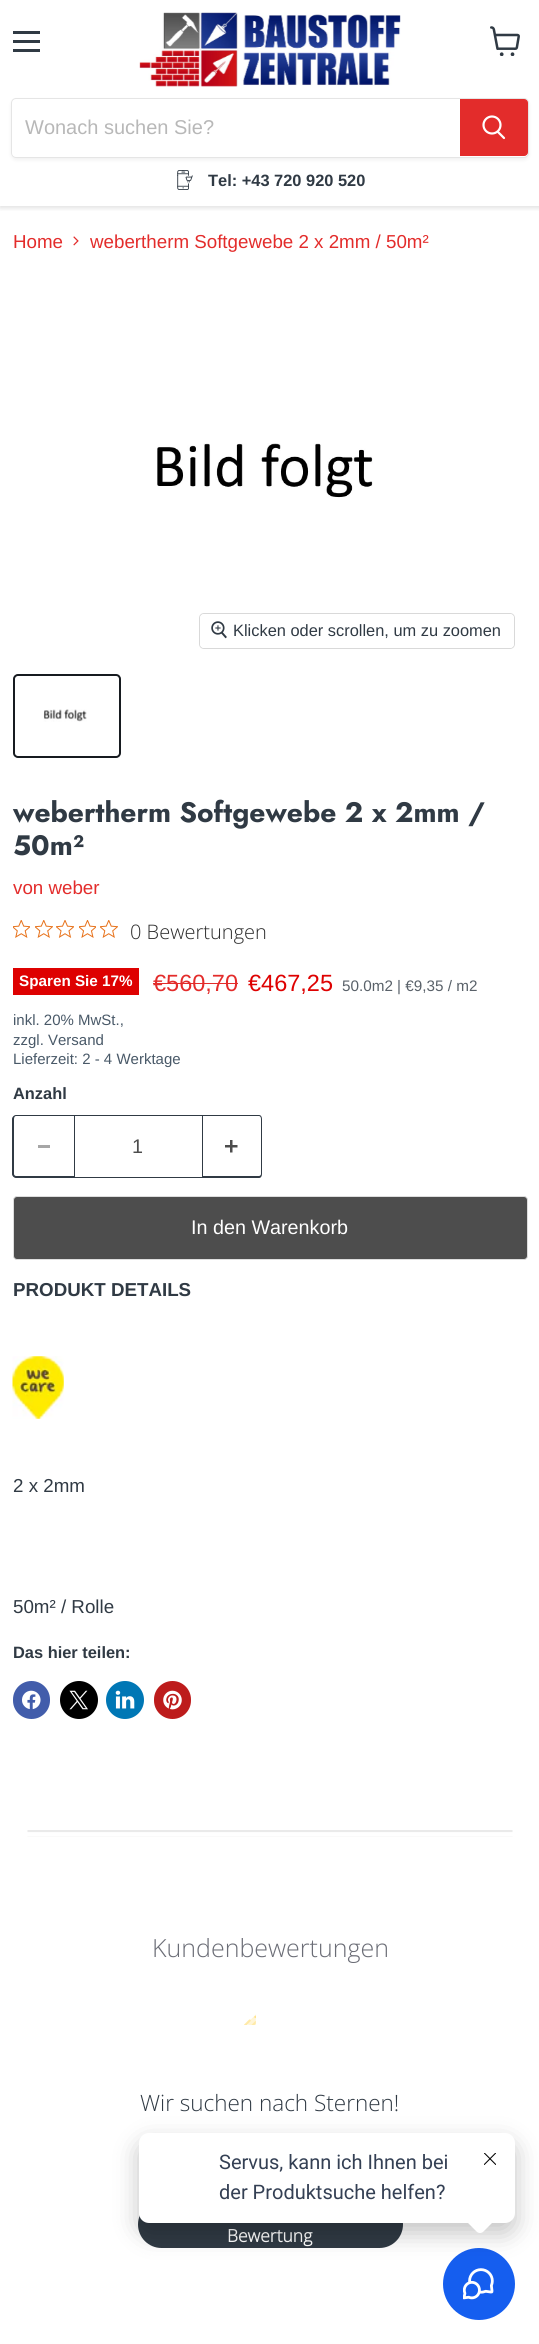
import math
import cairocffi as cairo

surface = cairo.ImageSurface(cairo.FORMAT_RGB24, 539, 2344)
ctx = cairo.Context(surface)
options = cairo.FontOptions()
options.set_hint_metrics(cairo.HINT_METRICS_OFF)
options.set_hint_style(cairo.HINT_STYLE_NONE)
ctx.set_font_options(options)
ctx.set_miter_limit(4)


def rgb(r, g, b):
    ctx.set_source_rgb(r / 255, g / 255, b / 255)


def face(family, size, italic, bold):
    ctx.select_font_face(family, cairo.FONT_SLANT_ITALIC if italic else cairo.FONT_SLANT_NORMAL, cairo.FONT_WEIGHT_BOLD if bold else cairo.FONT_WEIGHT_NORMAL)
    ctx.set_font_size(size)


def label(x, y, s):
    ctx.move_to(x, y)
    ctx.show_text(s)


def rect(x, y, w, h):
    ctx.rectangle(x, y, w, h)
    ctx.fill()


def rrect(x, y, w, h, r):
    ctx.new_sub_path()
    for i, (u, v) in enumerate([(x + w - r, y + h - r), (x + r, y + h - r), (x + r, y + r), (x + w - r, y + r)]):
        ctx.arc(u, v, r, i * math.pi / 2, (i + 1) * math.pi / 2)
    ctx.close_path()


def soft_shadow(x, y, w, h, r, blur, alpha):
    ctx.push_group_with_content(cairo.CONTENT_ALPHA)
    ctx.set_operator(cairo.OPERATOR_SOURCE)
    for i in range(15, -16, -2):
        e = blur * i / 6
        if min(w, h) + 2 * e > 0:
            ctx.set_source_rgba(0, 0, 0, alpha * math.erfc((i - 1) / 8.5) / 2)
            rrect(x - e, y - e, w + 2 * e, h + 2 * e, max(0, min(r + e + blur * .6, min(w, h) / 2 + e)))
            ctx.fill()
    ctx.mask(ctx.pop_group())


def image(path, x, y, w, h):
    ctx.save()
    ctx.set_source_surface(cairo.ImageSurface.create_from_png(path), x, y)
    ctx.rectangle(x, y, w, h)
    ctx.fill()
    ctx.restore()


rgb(255, 255, 255)
ctx.paint()
ctx.save()
ctx.rectangle(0, 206, 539, 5)
ctx.clip()
rgb(128, 128, 128)
soft_shadow(0, 1, 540, 207, 0, 2.5, 0.25)
ctx.restore()
rgb(48, 58, 68)
rect(13, 31, 27, 3)
rect(13, 40, 27, 3)
rect(13, 49, 27, 3)
image('image0.png', 490, 26, 30, 30)
image('image1.png', 139, 12, 262, 75)
ctx.save()
ctx.set_fill_rule(cairo.FILL_RULE_EVEN_ODD)
ctx.new_path()
ctx.move_to(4, 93)
ctx.line_to(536, 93)
ctx.line_to(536, 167)
ctx.line_to(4, 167)
ctx.close_path()
ctx.move_to(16, 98)
ctx.line_to(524, 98)
ctx.curve_to(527, 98, 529, 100, 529, 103)
ctx.line_to(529, 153)
ctx.curve_to(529, 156, 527, 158, 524, 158)
ctx.line_to(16, 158)
ctx.curve_to(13, 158, 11, 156, 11, 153)
ctx.line_to(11, 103)
ctx.curve_to(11, 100, 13, 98, 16, 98)
ctx.close_path()
ctx.clip()
rgb(128, 128, 128)
soft_shadow(11, 100, 518, 60, 5, 2, 0.11)
ctx.restore()
rrect(11.5, 98.5, 517, 59, 4.5)
ctx.set_source_rgba(0.502, 0.502, 0.502, 0.2)
ctx.set_line_width(1)
ctx.stroke()
face('Liberation Sans', 20, 0, 0)
rgb(184, 184, 184)
label(25, 134, 'Wonach suchen Sie?')
rgb(227, 44, 43)
ctx.new_path()
ctx.move_to(460.5, 99.5)
ctx.line_to(524, 99.5)
ctx.curve_to(526, 99.5, 527.5, 101, 527.5, 103)
ctx.line_to(527.5, 152)
ctx.curve_to(527.5, 154, 526, 155.5, 524, 155.5)
ctx.line_to(460.5, 155.5)
ctx.close_path()
ctx.fill_preserve()
ctx.stroke()
ctx.new_path()
ctx.move_to(504, 138)
ctx.line_to(498, 132)
rgb(255, 255, 255)
ctx.set_line_width(2.2)
ctx.set_line_cap(cairo.LINE_CAP_ROUND)
ctx.stroke()
ctx.arc(492, 125, 8.5, 0, 2 * math.pi)
ctx.set_line_cap(cairo.LINE_CAP_BUTT)
ctx.stroke()
image('image2.png', 177, 170, 16, 20)
face('Liberation Sans', 16.4, 0, 1)
rgb(48, 58, 68)
label(208, 186, 'Tel: +43 720 920 520')
face('Liberation Sans', 18.75, 0, 0)
rgb(227, 44, 43)
label(13, 248, 'Home')
image('image3.png', 73, 236, 6, 10)
label(90, 248, 'webertherm Softgewebe 2 x 2mm / 50m²')
image('image4.png', 157, 443, 216, 55)
rrect(199.5, 613.5, 315, 35, 4.5)
rgb(217, 217, 217)
ctx.set_line_width(1)
ctx.stroke()
ctx.set_source_rgba(1, 1, 1, 0.9)
rrect(200, 614, 314, 34, 4)
ctx.fill()
image('image5.png', 211, 621, 16, 18)
face('Liberation Sans', 16.4, 0, 0)
rgb(48, 58, 68)
label(233, 636, 'Klicken oder scrollen, um zu zoomen')
rrect(14, 675, 106, 82, 4)
rgb(23, 27, 32)
ctx.set_line_width(2)
ctx.stroke()
image('image6.png', 43, 709, 44, 13)
face('Jost', 28.1, 0, 1)
rgb(48, 58, 68)
label(13, 822, 'webertherm Softgewebe 2 x 2mm /')
label(13, 855, '50m²')
face('Liberation Sans', 18.75, 0, 0)
rgb(227, 44, 43)
label(13, 894, 'von weber')
image('image7.png', 13, 920, 17, 18)
image('image8.png', 35, 920, 18, 18)
image('image9.png', 56, 920, 18, 18)
image('image10.png', 79, 920, 17, 18)
image('image8.png', 100, 920, 18, 18)
face('Open Sans Light', 20, 0, 0)
rgb(44, 44, 44)
label(130, 939, '0 Bewertungen')
face('Liberation Sans', 23.5, 0, 0)
rgb(227, 44, 43)
label(153, 991, '€560,70')
rect(153, 983, 85, 1)
rgb(222, 1, 1)
label(248, 991, '€467,25')
face('Liberation Sans', 15.25, 0, 0)
rgb(89, 97, 105)
label(342, 991, '50.0m2 | €9,35 / m2')
face('Liberation Sans', 15, 0, 0)
rgb(73, 89, 104)
label(13, 1025, 'inkl. 20% MwSt.,')
label(13, 1045, 'zzgl. Versand')
label(13, 1064, 'Lieferzeit: 2 - 4 Werktage')
rgb(222, 1, 1)
rect(13, 968, 126, 27)
face('Liberation Sans', 15.25, 0, 1)
rgb(255, 255, 255)
label(19, 986, 'Sparen Sie 17%')
face('Liberation Sans', 16.4, 0, 1)
rgb(48, 58, 68)
label(13, 1099, 'Anzahl')
ctx.set_fill_rule(cairo.FILL_RULE_EVEN_ODD)
ctx.new_path()
ctx.move_to(16, 1115)
ctx.line_to(74, 1115)
ctx.line_to(74, 1178)
ctx.line_to(16, 1178)
ctx.curve_to(14, 1178, 12, 1176, 12, 1174)
ctx.line_to(12, 1119)
ctx.curve_to(12, 1117, 14, 1115, 16, 1115)
ctx.close_path()
ctx.move_to(16, 1116)
ctx.line_to(74, 1116)
ctx.line_to(74, 1176)
ctx.line_to(16, 1176)
ctx.curve_to(15, 1176, 14, 1175, 14, 1174)
ctx.line_to(14, 1119)
ctx.curve_to(14, 1117, 15, 1116, 16, 1116)
ctx.close_path()
ctx.fill()
rgb(166, 166, 166)
rect(38, 1145, 12, 3)
ctx.rectangle(74.5, 1115.5, 128, 62)
rgb(48, 58, 68)
ctx.set_line_width(1)
ctx.stroke()
face('Liberation Sans', 19.75, 0, 0)
rgb(77, 77, 77)
label(132, 1153, '1')
rgb(48, 58, 68)
ctx.new_path()
ctx.move_to(202, 1115)
ctx.line_to(259, 1115)
ctx.curve_to(261, 1115, 262, 1117, 262, 1119)
ctx.line_to(262, 1174)
ctx.curve_to(262, 1176, 261, 1178, 259, 1178)
ctx.line_to(202, 1178)
ctx.close_path()
ctx.move_to(202, 1116)
ctx.line_to(259, 1116)
ctx.curve_to(260, 1116, 261, 1117, 261, 1119)
ctx.line_to(261, 1174)
ctx.curve_to(261, 1175, 260, 1176, 259, 1176)
ctx.line_to(202, 1176)
ctx.close_path()
ctx.fill()
image('image11.png', 225, 1140, 13, 13)
rgb(77, 77, 77)
rrect(13.5, 1196.5, 514, 63, 3.5)
ctx.fill_preserve()
rgb(221, 221, 221)
ctx.stroke()
rgb(255, 255, 255)
label(191, 1234, 'In den Warenkorb')
face('Liberation Sans', 18.75, 0, 1)
rgb(48, 58, 68)
label(13, 1296, 'PRODUKT DETAILS')
image('image12.png', 12, 1356, 52, 63)
face('Liberation Sans', 18.75, 0, 0)
label(13, 1492, '2 x 2mm')
label(13, 1613, '50m² / Rolle')
face('Liberation Sans', 16.4, 0, 1)
label(13, 1658, 'Das hier teilen:')
rgb(66, 93, 171)
rrect(13, 1681, 37, 38, 18.5)
ctx.fill()
image('image13.png', 22, 1690, 19, 20)
rgb(0, 0, 0)
ctx.arc(79, 1700, 19, 0, 2 * math.pi)
ctx.fill()
image('image14.png', 69, 1690, 19, 20)
rgb(0, 119, 181)
ctx.arc(125, 1700, 19, 0, 2 * math.pi)
ctx.fill()
image('image15.png', 115, 1690, 20, 19)
rgb(189, 28, 28)
rrect(154, 1681, 37, 38, 18.5)
ctx.fill()
image('image16.png', 163, 1690, 19, 20)
image('image17.png', 27, 1830, 486, 7)
face('Open Sans Light', 25, 0, 0)
rgb(107, 109, 118)
label(152, 1957, 'Kundenbewertungen')
image('image18.png', 244, 2014, 12, 11)
face('Open Sans Light', 22.5, 0, 0)
rgb(48, 58, 68)
label(140, 2111, 'Wir suchen nach Sternen!')
rrect(138, 2201, 265, 47, 23.5)
ctx.fill()
face('Open Sans', 17.5, 0, 1)
rgb(255, 255, 255)
label(227, 2242, 'Bewertung')
rgb(21, 94, 239)
ctx.new_path()
ctx.arc(479, 2284, 36, 0, 2 * math.pi)
ctx.fill()
image('image20.png', 463, 2268, 31, 32)
rgb(0, 0, 0)
soft_shadow(139, 2143, 376, 90, 10, 12.5, 0.24)
rgb(255, 255, 255)
rrect(139, 2133, 376, 90, 10)
ctx.fill()
face('Roboto', 20, 0, 0)
rgb(52, 64, 84)
label(219, 2169, 'Servus, kann ich Ihnen bei')
label(219, 2199, 'der Produktsuche helfen?')
rgb(255, 255, 255)
ctx.set_fill_rule(cairo.FILL_RULE_WINDING)
ctx.new_path()
ctx.move_to(483.5, 2203.5)
ctx.line_to(494, 2214)
ctx.curve_to(496, 2216, 496, 2219, 494, 2221)
ctx.line_to(483.5, 2231.5)
ctx.curve_to(481.5, 2233.5, 478.5, 2233.5, 476.5, 2231.5)
ctx.line_to(466, 2221)
ctx.curve_to(464, 2219, 464, 2216, 466, 2214)
ctx.line_to(476.5, 2203.5)
ctx.curve_to(478.5, 2201.5, 481.5, 2201.5, 483.5, 2203.5)
ctx.close_path()
ctx.fill()
image('image19.png', 484, 2153, 12, 12)
surface.write_to_png('render.png')
